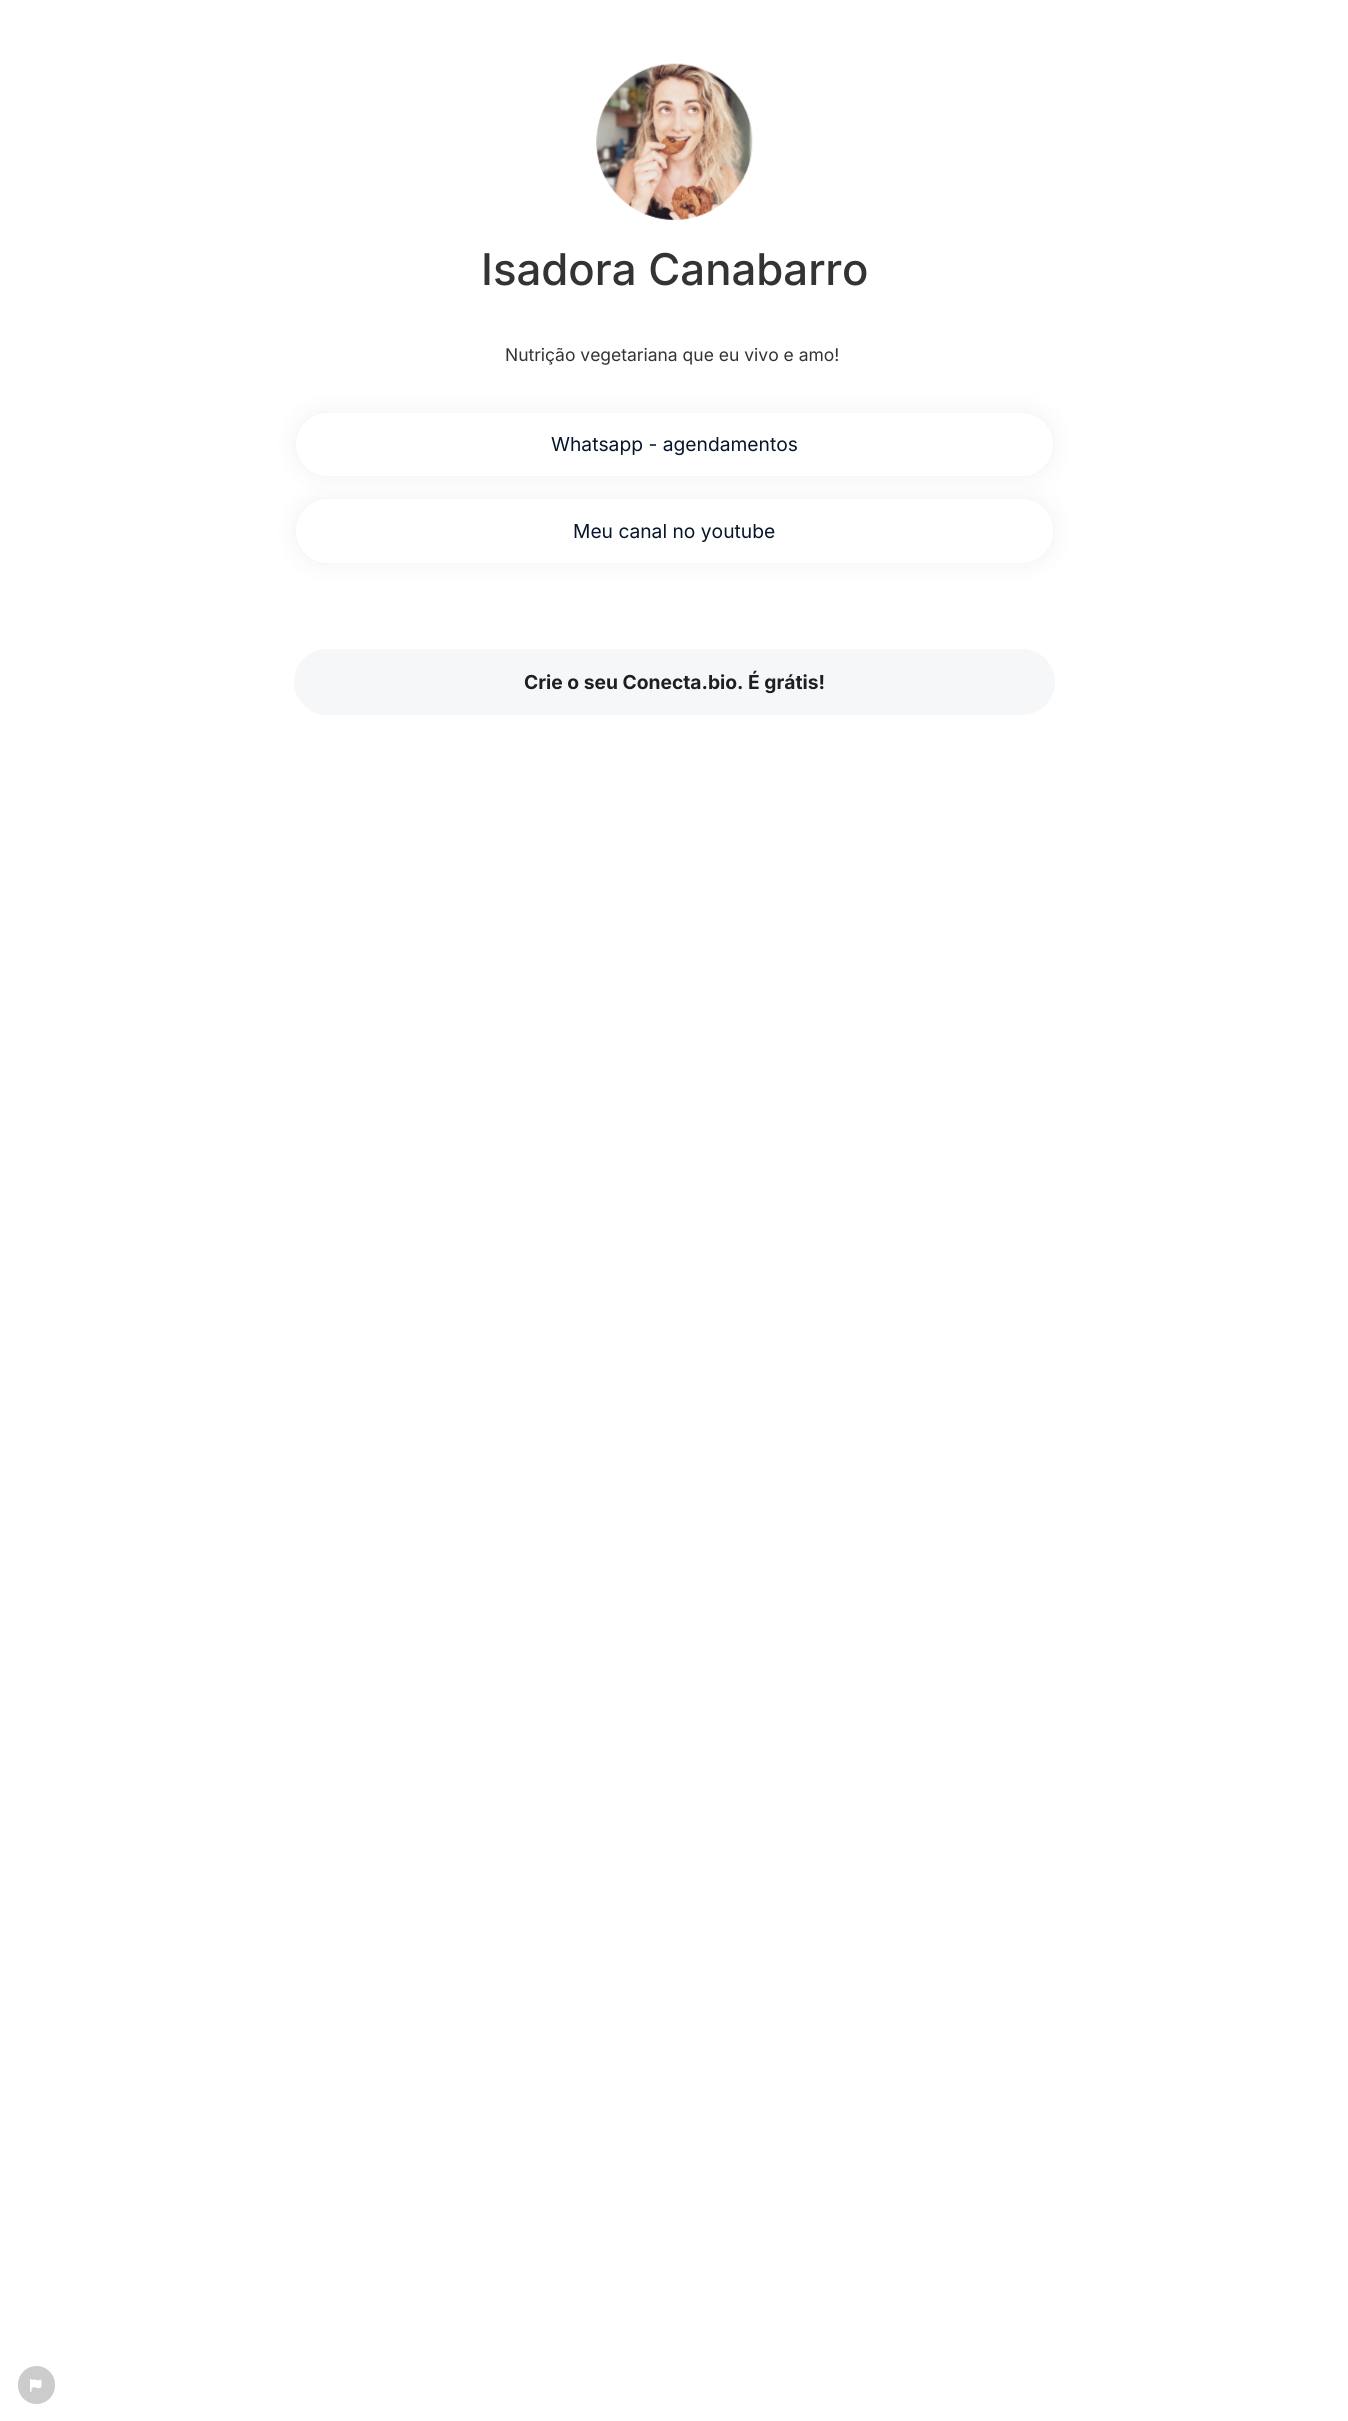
import math
import cairocffi as cairo

surface = cairo.ImageSurface(cairo.FORMAT_RGB24, 1348, 2421)
ctx = cairo.Context(surface)
options = cairo.FontOptions()
options.set_hint_metrics(cairo.HINT_METRICS_OFF)
options.set_hint_style(cairo.HINT_STYLE_NONE)
ctx.set_font_options(options)
ctx.set_miter_limit(4)


def rgb(r, g, b):
    ctx.set_source_rgb(r / 255, g / 255, b / 255)


def face(family, size, italic, bold):
    ctx.select_font_face(family, cairo.FONT_SLANT_ITALIC if italic else cairo.FONT_SLANT_NORMAL, cairo.FONT_WEIGHT_BOLD if bold else cairo.FONT_WEIGHT_NORMAL)
    ctx.set_font_size(size)


def label(x, y, s):
    ctx.move_to(x, y)
    ctx.show_text(s)


def rrect(x, y, w, h, r):
    ctx.new_sub_path()
    for i, (u, v) in enumerate([(x + w - r, y + h - r), (x + r, y + h - r), (x + r, y + r), (x + w - r, y + r)]):
        ctx.arc(u, v, r, i * math.pi / 2, (i + 1) * math.pi / 2)
    ctx.close_path()


def soft_shadow(x, y, w, h, r, blur, alpha):
    ctx.push_group_with_content(cairo.CONTENT_ALPHA)
    ctx.set_operator(cairo.OPERATOR_SOURCE)
    for i in range(15, -16, -2):
        e = blur * i / 6
        if min(w, h) + 2 * e > 0:
            ctx.set_source_rgba(0, 0, 0, alpha * math.erfc((i - 1) / 8.5) / 2)
            rrect(x - e, y - e, w + 2 * e, h + 2 * e, max(0, min(r + e + blur * .6, min(w, h) / 2 + e)))
            ctx.fill()
    ctx.mask(ctx.pop_group())


def image(path, x, y, w, h):
    ctx.save()
    ctx.set_source_surface(cairo.ImageSurface.create_from_png(path), x, y)
    ctx.rectangle(x, y, w, h)
    ctx.fill()
    ctx.restore()


rgb(255, 255, 255)
ctx.paint()
image('image0.png', 596, 63, 157, 158)
face('Inter Medium', 43.75, 0, 0)
rgb(51, 51, 51)
label(481, 285, 'Isadora Canabarro')
face('Inter', 17.5, 0, 0)
label(505, 361, 'Nutrição vegetariana que eu vivo e amo!')
rgb(0, 0, 0)
soft_shadow(296, 413, 757, 63, 31.5, 12.5, 0.06)
rgb(255, 255, 255)
rrect(296, 413, 757, 63, 31.5)
ctx.fill()
face('Inter', 19.25, 0, 0)
rgb(8, 22, 43)
label(551, 451, 'Whatsapp - agendamentos')
rgb(0, 0, 0)
soft_shadow(296, 499, 757, 64, 32, 12.5, 0.06)
rgb(255, 255, 255)
rrect(296, 499, 757, 64, 32)
ctx.fill()
rgb(8, 22, 43)
label(573, 538, 'Meu canal no youtube')
rgb(246, 247, 248)
rrect(294, 649, 761, 66, 33)
ctx.fill()
face('Inter', 19.25, 0, 1)
rgb(29, 31, 37)
label(524, 689, 'Crie o seu Conecta.bio. É grátis!')
rgb(204, 204, 204)
rrect(18, 2366, 37, 38, 18.5)
ctx.fill()
image('image1.png', 30, 2378, 12, 14)
surface.write_to_png('render.png')
